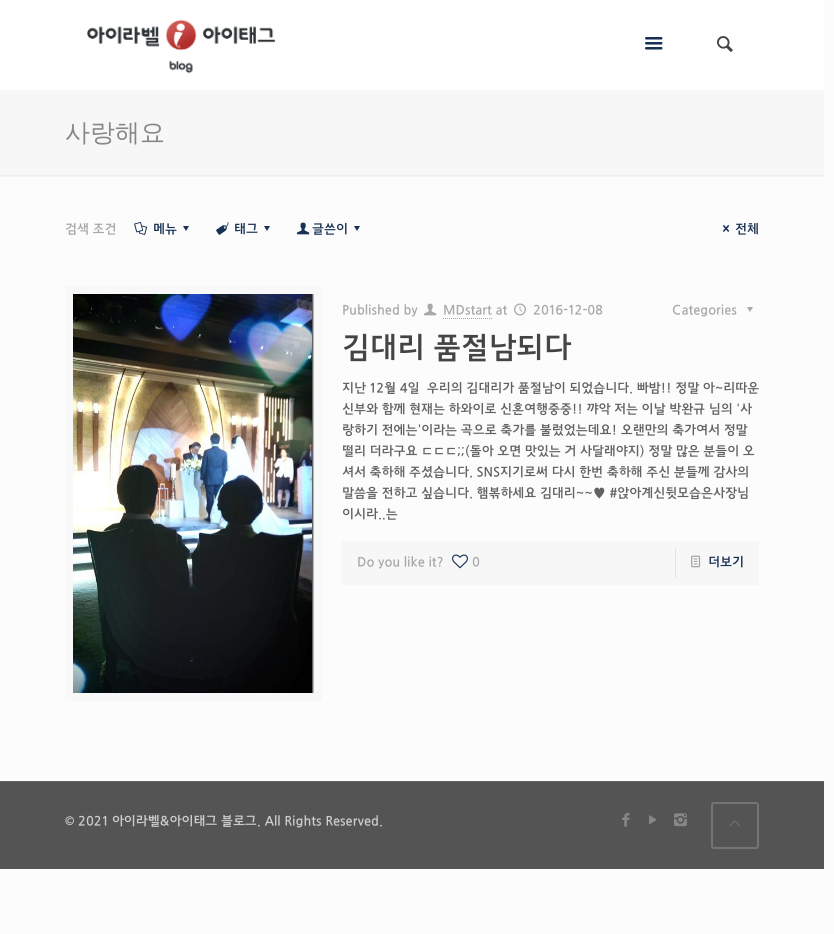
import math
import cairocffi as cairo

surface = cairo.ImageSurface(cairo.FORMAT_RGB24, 834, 934)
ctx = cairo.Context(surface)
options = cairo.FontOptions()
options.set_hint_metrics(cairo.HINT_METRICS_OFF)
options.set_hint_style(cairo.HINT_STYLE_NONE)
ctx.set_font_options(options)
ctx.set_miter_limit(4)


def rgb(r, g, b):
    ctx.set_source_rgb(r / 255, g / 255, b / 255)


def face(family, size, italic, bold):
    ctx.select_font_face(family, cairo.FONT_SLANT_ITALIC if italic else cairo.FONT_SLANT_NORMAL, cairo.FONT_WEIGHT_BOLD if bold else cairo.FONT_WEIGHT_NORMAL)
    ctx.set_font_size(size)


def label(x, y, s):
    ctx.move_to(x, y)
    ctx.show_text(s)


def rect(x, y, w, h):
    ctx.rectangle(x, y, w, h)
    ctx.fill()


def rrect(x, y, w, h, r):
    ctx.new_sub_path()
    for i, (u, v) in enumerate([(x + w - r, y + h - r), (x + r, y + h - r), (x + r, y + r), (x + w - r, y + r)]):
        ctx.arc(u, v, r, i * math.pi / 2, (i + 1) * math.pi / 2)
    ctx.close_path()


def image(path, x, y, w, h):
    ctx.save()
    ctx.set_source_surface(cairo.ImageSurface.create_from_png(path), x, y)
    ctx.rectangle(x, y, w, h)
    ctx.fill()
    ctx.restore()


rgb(252, 252, 252)
ctx.paint()
rgb(255, 255, 255)
rect(0, 0, 824, 90)
image('image0.png', 86, 19, 190, 55)
image('image1.png', 645, 37, 18, 13)
image('image2.png', 717, 36, 16, 16)
rgb(247, 247, 247)
rect(0, 90, 824, 85)
face('WenQuanYi Zen Hei Medium', 25, 0, 0)
rgb(136, 136, 136)
label(65, 141, '사랑해요')
image('image3.png', 0, 175, 824, 2)
face('JejuGothic', 13, 0, 0)
rgb(168, 168, 168)
label(65, 233, '검색 조건')
image('image4.png', 134, 222, 14, 13)
rgb(24, 48, 83)
label(153, 233, '메뉴')
ctx.new_path()
ctx.move_to(189, 226)
ctx.line_to(186, 231)
ctx.line_to(183, 226)
ctx.close_path()
ctx.fill()
image('image5.png', 216, 222, 13, 13)
label(234, 233, '태그')
ctx.new_path()
ctx.move_to(270, 226)
ctx.line_to(267, 231)
ctx.line_to(264, 226)
ctx.close_path()
ctx.fill()
image('image6.png', 297, 222, 13, 13)
label(312, 233, '글쓴이')
ctx.new_path()
ctx.move_to(360, 226)
ctx.line_to(357, 231)
ctx.line_to(354, 226)
ctx.close_path()
ctx.fill()
image('image7.png', 723, 225, 7, 7)
label(735, 233, '전체')
ctx.rectangle(69, 290, 249, 407)
rgb(248, 248, 248)
ctx.set_line_width(8)
ctx.stroke()
image('image8.png', 73, 294, 241, 399)
rgb(168, 168, 168)
label(342, 314, 'Published by')
image('image9.png', 424, 303, 13, 13)
label(443, 314, 'MDstart at')
ctx.new_path()
ctx.move_to(443, 318.5)
ctx.line_to(492, 318.5)
ctx.set_line_width(1)
ctx.set_dash([1, 1])
ctx.stroke()
image('image10.png', 514, 303, 12, 13)
label(533, 314, '2016-12-08')
label(672, 314, 'Categories')
ctx.new_path()
ctx.move_to(753, 307)
ctx.line_to(750, 312)
ctx.line_to(747, 307)
ctx.close_path()
ctx.fill()
face('JejuGothic', 30, 0, 0)
rgb(68, 68, 68)
label(342, 357, '김대리 품절남되다')
face('JejuGothic', 13, 0, 0)
rgb(98, 98, 98)
label(342, 392, '지난 12월 4일  우리의 김대리가 품절남이 되었습니다. 빠밤!! 정말 아~리따운')
label(342, 413, '신부와 함께 현재는 하와이로 신혼여행중중!! 꺄악 저는 이날 박완규 님의 ‘사')
label(342, 434, '랑하기 전에는’이라는 곡으로 축가를 불렀었는데요! 오랜만의 축가여서 정말')
label(342, 455, '떨리 더라구요 ㄷㄷㄷ;;(돌아 오면 맛있는 거 사달래야지) 정말 많은 분들이 오')
label(342, 476, '셔서 축하해 주셨습니다. SNS지기로써 다시 한번 축하해 주신 분들께 감사의')
label(342, 497, '말씀을 전하고 싶습니다. 햄볶하세요 김대리~~♥ #앉아계신뒷모습은사장님')
label(342, 518, '이시라..는')
rgb(247, 247, 247)
rect(342, 541, 417, 44)
rgb(168, 168, 168)
label(357, 566, 'Do you like it?')
image('image11.png', 452, 554, 16, 15)
label(472, 566, '0')
rgb(227, 227, 227)
rect(675, 548, 1, 30)
image('image12.png', 691, 555, 10, 13)
rgb(24, 48, 83)
label(708, 566, '더보기')
rgb(84, 84, 84)
rect(0, 782, 824, 87)
rgb(101, 101, 101)
rect(0, 781, 824, 1)
rgb(204, 204, 204)
label(65, 825, '© 2021 아이라벨&아이태그 블로그. All Rights Reserved.')
image('image13.png', 622, 813, 8, 14)
image('image14.png', 649, 815, 8, 10)
image('image15.png', 674, 813, 13, 14)
rrect(712, 803, 46, 45, 2)
rgb(116, 116, 116)
ctx.set_line_width(2)
ctx.set_dash([])
ctx.stroke()
image('image16.png', 729, 820, 12, 7)
surface.write_to_png('render.png')
